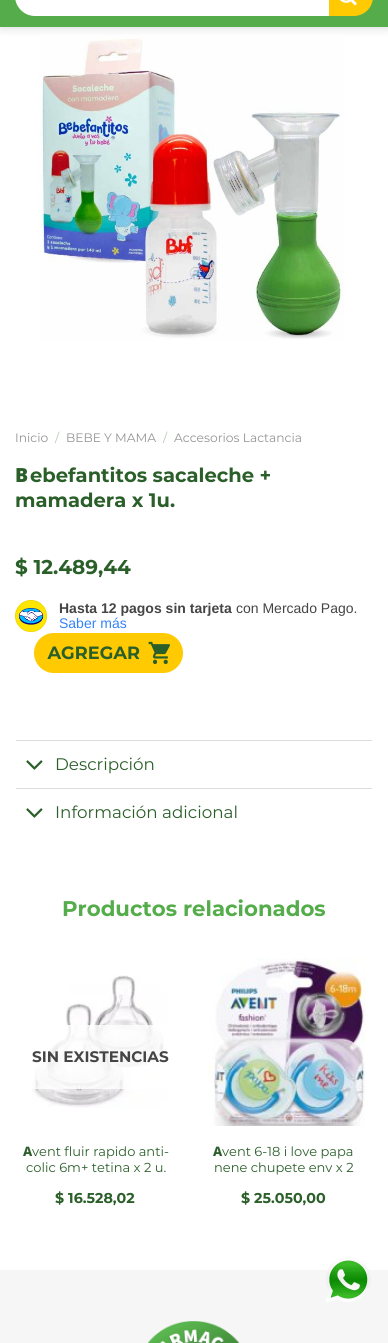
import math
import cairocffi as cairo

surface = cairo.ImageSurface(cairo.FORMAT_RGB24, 388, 1343)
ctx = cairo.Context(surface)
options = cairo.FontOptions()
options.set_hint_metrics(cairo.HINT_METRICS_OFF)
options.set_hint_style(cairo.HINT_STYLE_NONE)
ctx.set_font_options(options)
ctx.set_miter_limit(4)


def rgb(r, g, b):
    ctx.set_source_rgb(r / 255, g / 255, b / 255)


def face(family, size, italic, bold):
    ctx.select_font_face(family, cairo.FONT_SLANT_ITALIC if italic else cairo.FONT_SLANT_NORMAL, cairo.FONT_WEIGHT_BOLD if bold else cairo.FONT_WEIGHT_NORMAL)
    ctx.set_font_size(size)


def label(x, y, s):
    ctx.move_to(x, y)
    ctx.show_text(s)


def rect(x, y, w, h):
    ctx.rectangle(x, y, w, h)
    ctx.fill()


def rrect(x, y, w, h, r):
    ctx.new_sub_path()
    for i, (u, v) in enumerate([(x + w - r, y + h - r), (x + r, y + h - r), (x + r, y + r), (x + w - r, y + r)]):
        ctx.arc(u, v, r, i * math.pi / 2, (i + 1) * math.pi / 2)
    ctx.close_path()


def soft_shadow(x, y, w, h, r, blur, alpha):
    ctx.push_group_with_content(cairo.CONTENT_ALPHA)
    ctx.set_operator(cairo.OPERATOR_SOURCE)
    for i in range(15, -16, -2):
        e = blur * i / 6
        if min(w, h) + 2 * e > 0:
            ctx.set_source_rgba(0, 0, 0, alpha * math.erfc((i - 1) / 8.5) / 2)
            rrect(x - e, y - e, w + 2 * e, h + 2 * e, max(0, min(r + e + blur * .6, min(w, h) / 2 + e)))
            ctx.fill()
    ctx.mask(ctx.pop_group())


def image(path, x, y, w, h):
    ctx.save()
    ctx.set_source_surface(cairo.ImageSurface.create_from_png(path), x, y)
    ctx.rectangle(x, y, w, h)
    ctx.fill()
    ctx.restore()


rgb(255, 255, 255)
ctx.paint()
image('image1.png', 39, 37, 305, 303)
rgb(0, 0, 0)
soft_shadow(1, -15, 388, 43, 0, 5, 0.15)
rgb(84, 172, 74)
rect(0, 0, 388, 27)
rgb(255, 255, 255)
ctx.new_path()
ctx.move_to(35, -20)
ctx.line_to(329, -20)
ctx.line_to(329, 16)
ctx.line_to(35, 16)
ctx.curve_to(24, 16, 15, 7, 15, -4)
ctx.line_to(15, 0)
ctx.curve_to(15, -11, 24, -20, 35, -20)
ctx.close_path()
ctx.fill()
rgb(255, 202, 2)
ctx.new_path()
ctx.move_to(329, -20)
ctx.line_to(353.5, -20)
ctx.curve_to(364.5, -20, 373, -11.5, 373, -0.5)
ctx.line_to(373, -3.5)
ctx.curve_to(373, 7.5, 364.5, 16, 353.5, 16)
ctx.line_to(329, 16)
ctx.close_path()
ctx.fill()
image('image0.png', 340, 0, 17, 6)
face('Montserrat', 12.25, 0, 0)
rgb(148, 148, 148)
label(15, 442, 'Inicio')
rgb(181, 199, 180)
label(55, 442, '/')
rgb(148, 148, 148)
label(66, 442, 'BEBE Y MAMA')
rgb(181, 199, 180)
label(163, 442, '/')
rgb(148, 148, 148)
label(174, 442, 'Accesorios Lactancia')
face('Noto Sans Black', 19.5, 0, 0)
rgb(43, 95, 42)
label(15, 482, 'B')
face('Montserrat', 19.5, 0, 1)
label(30, 482, 'ebefantitos sacaleche +')
label(15, 507, 'mamadera x 1u.')
face('Montserrat', 20, 0, 1)
label(15, 574, '$ 12.489,44')
image('image2.png', 15, 600, 32, 32)
face('Liberation Sans', 14, 0, 1)
rgb(70, 69, 69)
label(59, 613, 'Hasta 12 pagos sin tarjeta')
face('Liberation Sans', 14, 0, 0)
label(236, 613, 'con Mercado Pago.')
rgb(52, 131, 250)
label(59, 628, 'Saber más')
image('image3.png', 34, 633, 149, 40)
rgb(221, 221, 221)
rect(16, 740, 356, 1)
image('image4.png', 26, 760, 17, 10)
face('Montserrat', 16.75, 0, 0)
rgb(43, 95, 42)
label(55, 770, 'Descripción')
rgb(221, 221, 221)
rect(16, 788, 356, 1)
image('image4.png', 26, 808, 17, 10)
rgb(43, 95, 42)
label(55, 818, 'Información adicional')
face('Montserrat', 21.25, 0, 1)
rgb(84, 172, 74)
label(62, 916, 'Productos relacionados')
image('image5.png', 31, 975, 136, 133)
ctx.set_source_rgba(1, 1, 1, 0.81)
rect(31, 1025, 136, 64)
face('Montserrat', 15.25, 0, 1)
rgb(70, 69, 69)
label(32, 1062, 'SIN EXISTENCIAS')
face('Noto Sans ExtraBold', 13, 0, 0)
rgb(43, 95, 42)
label(23, 1156, 'A')
face('Montserrat', 13, 0, 0)
label(32, 1156, 'vent fluir rapido anti-')
label(26, 1172, 'colic 6m+ tetina x 2 u.')
face('Montserrat', 14.25, 0, 1)
label(55, 1203, '$ 16.528,02')
image('image6.png', 208, 958, 158, 168)
face('Noto Sans ExtraBold', 13, 0, 0)
label(213, 1156, 'A')
face('Montserrat', 13, 0, 0)
label(222, 1156, 'vent 6-18 i love papa')
label(214, 1172, 'nene chupete env x 2')
face('Montserrat', 14.25, 0, 1)
label(241, 1203, '$ 25.050,00')
rgb(246, 246, 246)
rect(0, 1270, 388, 73)
image('image7.png', 325, 1257, 46, 46)
image('image8.png', 148, 1321, 92, 22)
surface.write_to_png('render.png')
